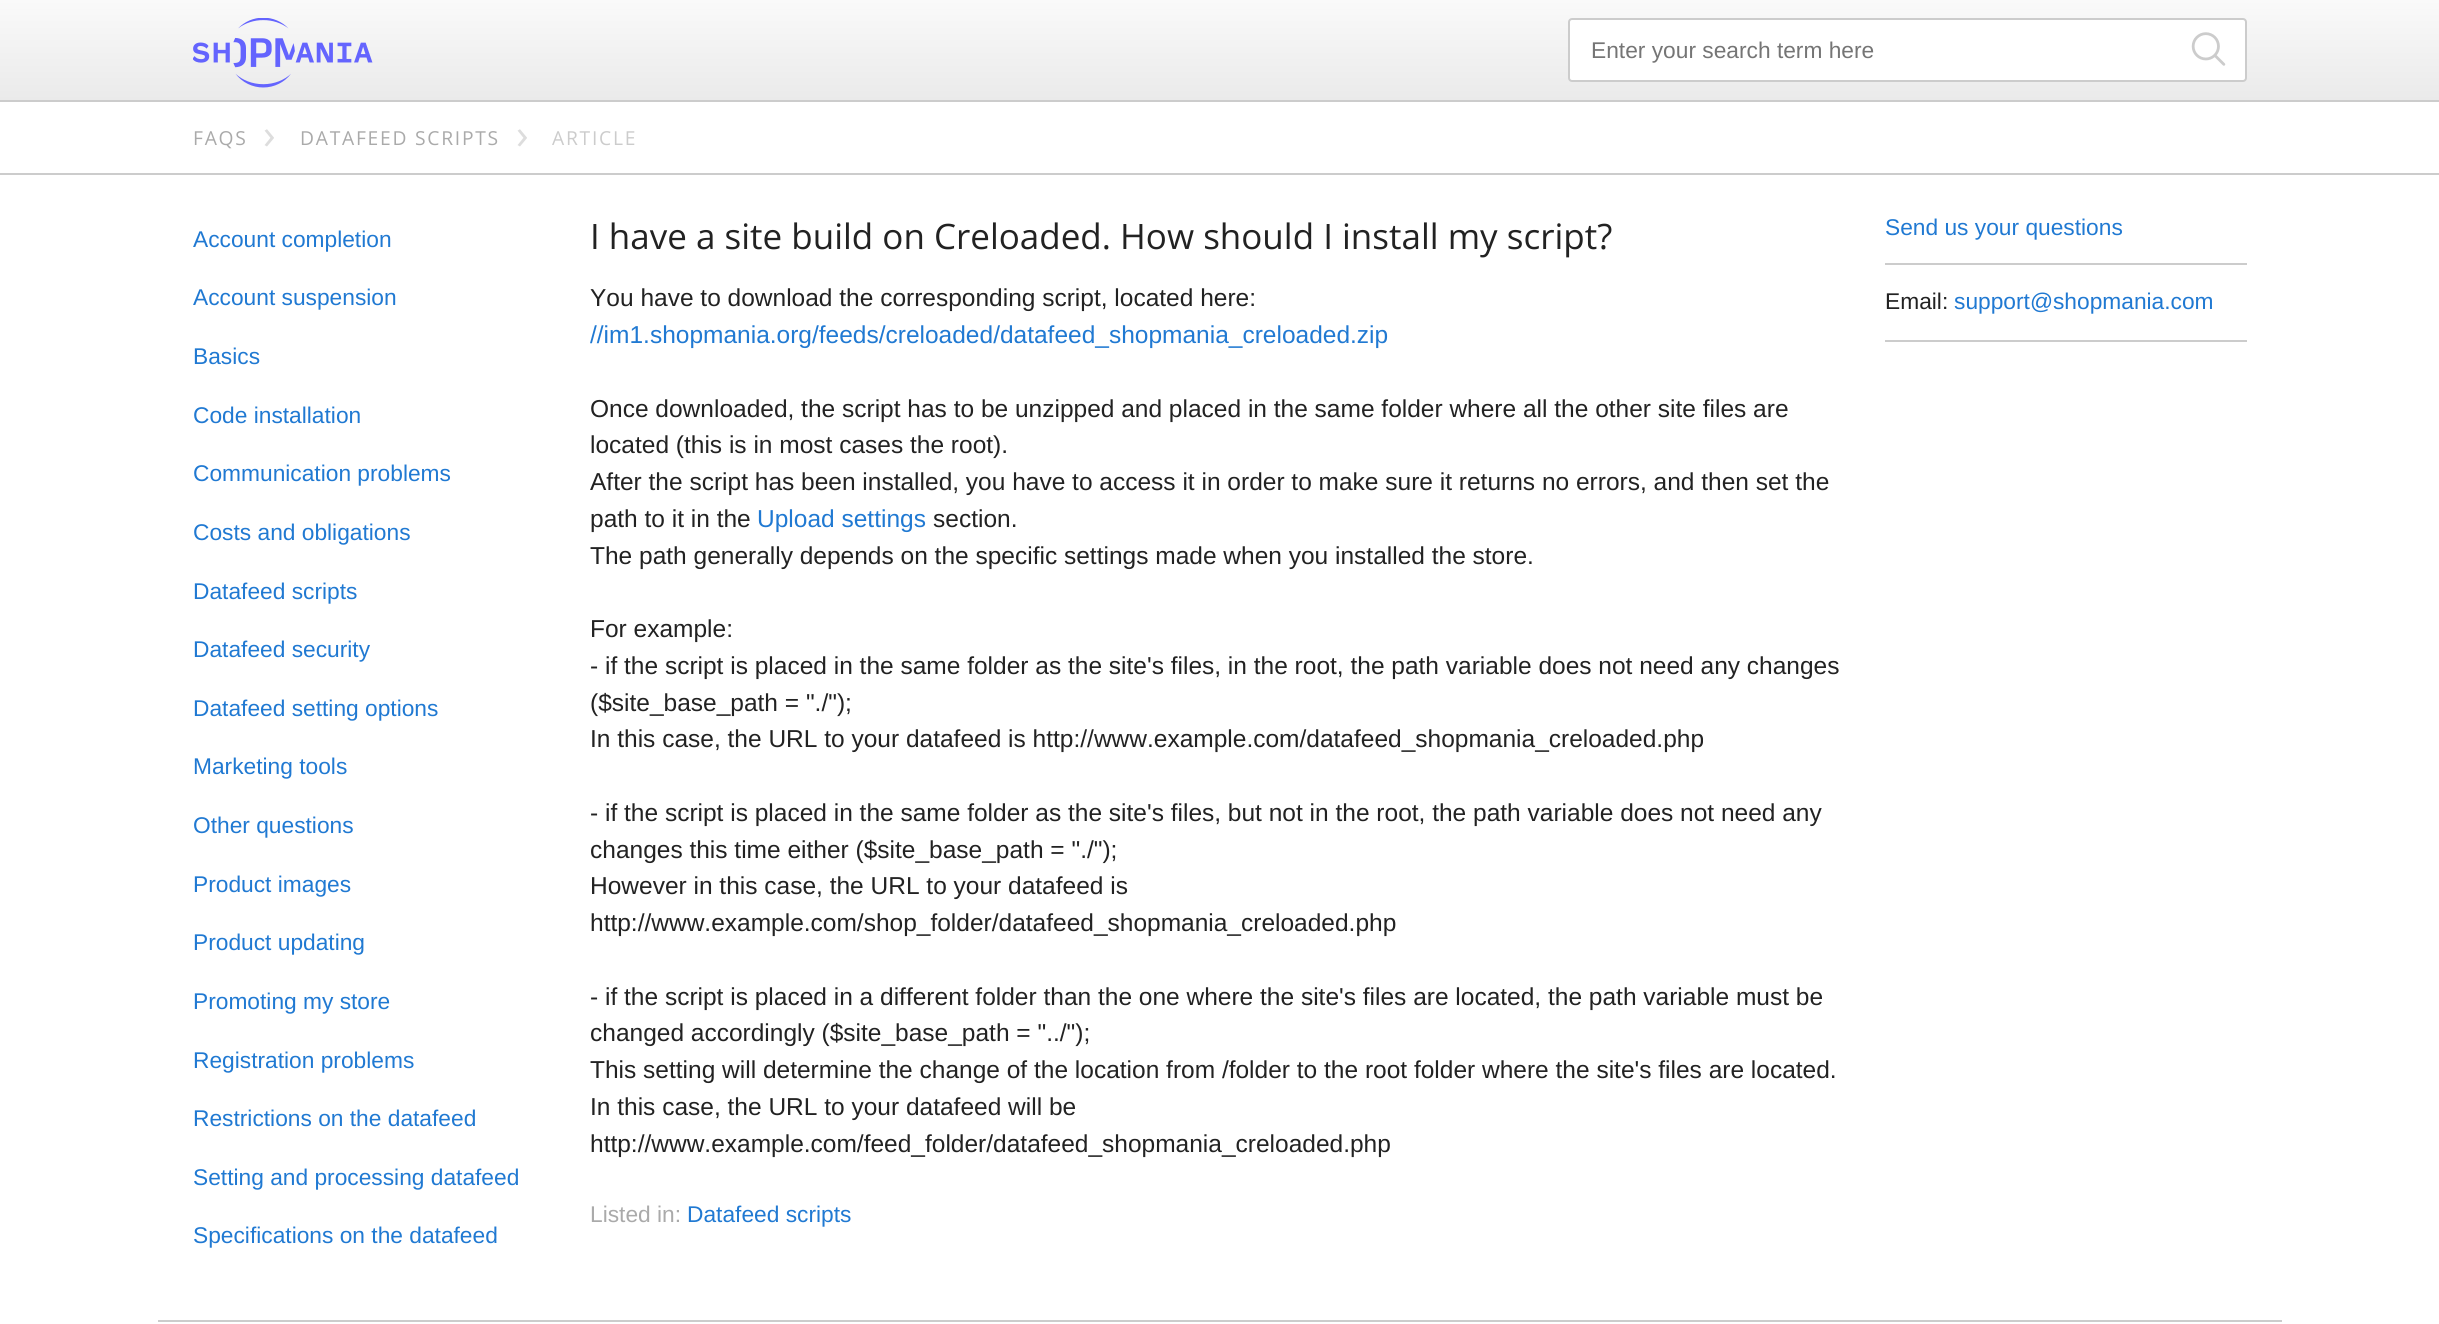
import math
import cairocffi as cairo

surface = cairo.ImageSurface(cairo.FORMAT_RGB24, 2439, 1324)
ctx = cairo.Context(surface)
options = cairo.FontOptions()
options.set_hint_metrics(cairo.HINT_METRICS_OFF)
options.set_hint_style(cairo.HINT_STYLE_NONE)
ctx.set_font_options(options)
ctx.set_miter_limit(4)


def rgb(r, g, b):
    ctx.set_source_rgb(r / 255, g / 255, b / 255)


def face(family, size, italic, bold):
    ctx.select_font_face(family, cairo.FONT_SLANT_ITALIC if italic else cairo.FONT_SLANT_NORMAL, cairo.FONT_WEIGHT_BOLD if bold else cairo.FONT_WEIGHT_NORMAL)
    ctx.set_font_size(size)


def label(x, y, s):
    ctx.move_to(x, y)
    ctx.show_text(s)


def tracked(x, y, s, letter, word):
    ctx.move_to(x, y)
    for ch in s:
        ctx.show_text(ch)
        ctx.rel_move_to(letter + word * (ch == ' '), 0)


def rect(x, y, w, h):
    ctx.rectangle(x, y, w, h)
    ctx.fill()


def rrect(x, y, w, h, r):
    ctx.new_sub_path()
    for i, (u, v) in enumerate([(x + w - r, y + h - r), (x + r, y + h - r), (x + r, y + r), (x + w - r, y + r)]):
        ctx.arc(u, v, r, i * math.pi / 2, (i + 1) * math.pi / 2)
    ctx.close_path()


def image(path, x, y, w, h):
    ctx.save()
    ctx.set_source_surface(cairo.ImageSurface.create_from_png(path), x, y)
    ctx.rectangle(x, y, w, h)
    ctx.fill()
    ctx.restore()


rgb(255, 255, 255)
ctx.paint()
gradient = cairo.LinearGradient(1220, 0, 1220, 100)
gradient.add_color_stop_rgba(0, 0.98, 0.98, 0.98, 1)
gradient.add_color_stop_rgba(1, 0.918, 0.918, 0.918, 1)
ctx.set_source(gradient)
rect(0, 0, 2439, 100)
rgb(204, 204, 204)
rect(0, 100, 2439, 2)
image('image0.png', 193, 18, 180, 70)
rgb(255, 255, 255)
rrect(1569, 19, 677, 62, 3)
ctx.fill_preserve()
rgb(204, 204, 204)
ctx.stroke()
face('Liberation Sans', 22.75, 0, 0)
rgb(117, 117, 117)
label(1591, 58, 'Enter your search term here')
image('image1.png', 2191, 32, 35, 34)
rgb(204, 204, 204)
rect(0, 173, 2439, 2)
face('Open Sans', 19.25, 0, 0)
rgb(170, 170, 170)
tracked(193, 145, 'FAQS', 1.75, 0)
face('Open Sans', 42, 0, 0)
rgb(221, 221, 221)
tracked(263, 149, '›', 5, 0)
face('Open Sans', 19.25, 0, 0)
rgb(170, 170, 170)
tracked(300, 145, 'DATAFEED SCRIPTS', 1.75, 0)
face('Open Sans', 42, 0, 0)
rgb(221, 221, 221)
tracked(516, 149, '›', 5, 0)
face('Open Sans', 19.25, 0, 0)
rgb(204, 204, 204)
tracked(552, 145, 'ARTICLE', 1.75, 0)
face('Liberation Sans', 22.75, 0, 0)
rgb(32, 121, 210)
label(193, 247, 'Account completion')
label(193, 305, 'Account suspension')
label(193, 364, 'Basics')
label(193, 423, 'Code installation')
label(193, 481, 'Communication problems')
label(193, 540, 'Costs and obligations')
label(193, 599, 'Datafeed scripts')
label(193, 657, 'Datafeed security')
label(193, 716, 'Datafeed setting options')
label(193, 774, 'Marketing tools')
label(193, 833, 'Other questions')
label(193, 892, 'Product images')
label(193, 950, 'Product updating')
label(193, 1009, 'Promoting my store')
label(193, 1068, 'Registration problems')
label(193, 1126, 'Restrictions on the datafeed')
label(193, 1185, 'Setting and processing datafeed')
label(193, 1243, 'Specifications on the datafeed')
face('Open Sans', 35, 0, 0)
rgb(34, 34, 34)
label(590, 249, 'I have a site build on Creloaded. How should I install my script?')
face('Liberation Sans', 24.5, 0, 0)
label(590, 306, 'You have to download the corresponding script, located here:')
rgb(32, 121, 210)
label(590, 343, '//im1.shopmania.org/feeds/creloaded/datafeed_shopmania_creloaded.zip')
rgb(34, 34, 34)
label(590, 417, 'Once downloaded, the script has to be unzipped and placed in the same folder where all the other site files are')
label(590, 453, 'located (this is in most cases the root).')
label(590, 490, 'After the script has been installed, you have to access it in order to make sure it returns no errors, and then set the')
label(590, 527, 'path to it in the')
rgb(32, 121, 210)
label(757, 527, 'Upload settings')
rgb(34, 34, 34)
label(933, 527, 'section.')
label(590, 564, 'The path generally depends on the specific settings made when you installed the store.')
label(590, 637, 'For example:')
label(590, 674, '- if the script is placed in the same folder as the site\'s files, in the root, the path variable does not need any changes')
label(590, 711, '($site_base_path = "./");')
label(590, 747, 'In this case, the URL to your datafeed is http://www.example.com/datafeed_shopmania_creloaded.php')
label(590, 821, '- if the script is placed in the same folder as the site\'s files, but not in the root, the path variable does not need any')
label(590, 858, 'changes this time either ($site_base_path = "./");')
label(590, 894, 'However in this case, the URL to your datafeed is')
label(590, 931, 'http://www.example.com/shop_folder/datafeed_shopmania_creloaded.php')
label(590, 1005, '- if the script is placed in a different folder than the one where the site\'s files are located, the path variable must be')
label(590, 1041, 'changed accordingly ($site_base_path = "../");')
label(590, 1078, 'This setting will determine the change of the location from /folder to the root folder where the site\'s files are located.')
label(590, 1115, 'In this case, the URL to your datafeed will be')
label(590, 1152, 'http://www.example.com/feed_folder/datafeed_shopmania_creloaded.php')
face('Liberation Sans', 22.75, 0, 0)
rgb(170, 170, 170)
label(590, 1222, 'Listed in:')
rgb(32, 121, 210)
label(687, 1222, 'Datafeed scripts')
label(1885, 235, 'Send us your questions')
rgb(204, 204, 204)
rect(1885, 263, 362, 2)
rect(1885, 340, 362, 2)
rgb(34, 34, 34)
label(1885, 309, 'Email:')
rgb(32, 121, 210)
label(1954, 309, 'support@shopmania.com')
rgb(204, 204, 204)
rect(158, 1320, 2124, 2)
surface.write_to_png('render.png')
